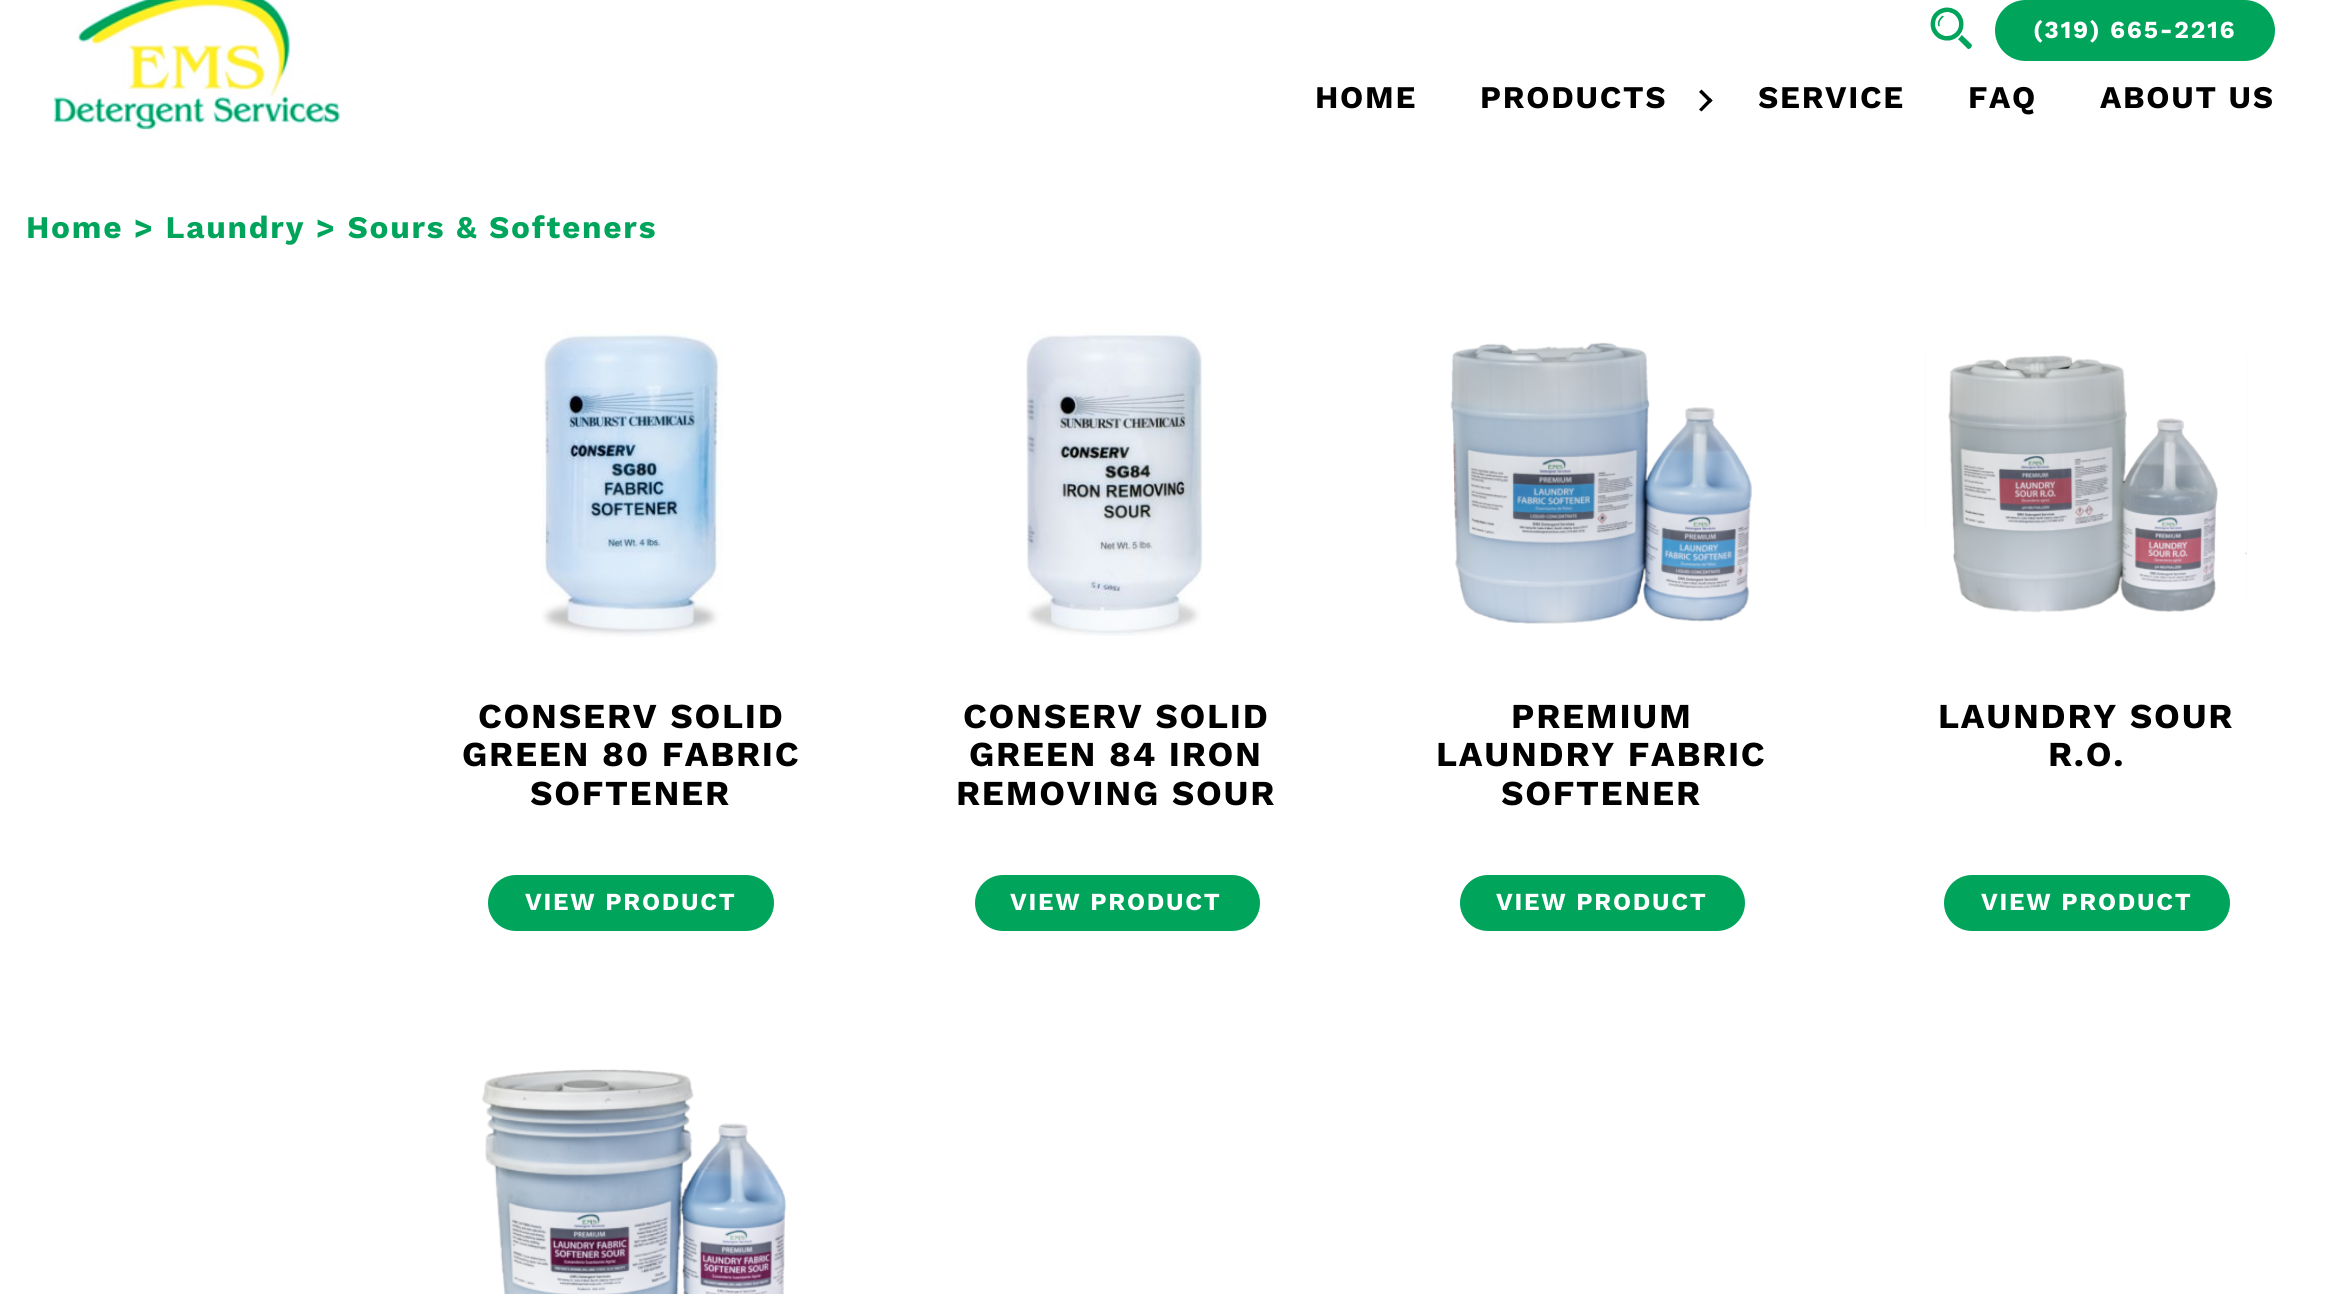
import math
import cairocffi as cairo

surface = cairo.ImageSurface(cairo.FORMAT_RGB24, 2328, 1294)
ctx = cairo.Context(surface)
options = cairo.FontOptions()
options.set_hint_metrics(cairo.HINT_METRICS_OFF)
options.set_hint_style(cairo.HINT_STYLE_NONE)
ctx.set_font_options(options)
ctx.set_miter_limit(4)


def rgb(r, g, b):
    ctx.set_source_rgb(r / 255, g / 255, b / 255)


def face(family, size, italic, bold):
    ctx.select_font_face(family, cairo.FONT_SLANT_ITALIC if italic else cairo.FONT_SLANT_NORMAL, cairo.FONT_WEIGHT_BOLD if bold else cairo.FONT_WEIGHT_NORMAL)
    ctx.set_font_size(size)


def tracked(x, y, s, letter, word):
    ctx.move_to(x, y)
    for ch in s:
        ctx.show_text(ch)
        ctx.rel_move_to(letter + word * (ch == ' '), 0)


def rrect(x, y, w, h, r):
    ctx.new_sub_path()
    for i, (u, v) in enumerate([(x + w - r, y + h - r), (x + r, y + h - r), (x + r, y + r), (x + w - r, y + r)]):
        ctx.arc(u, v, r, i * math.pi / 2, (i + 1) * math.pi / 2)
    ctx.close_path()


def image(path, x, y, w, h):
    ctx.save()
    ctx.set_source_surface(cairo.ImageSurface.create_from_png(path), x, y)
    ctx.rectangle(x, y, w, h)
    ctx.fill()
    ctx.restore()


rgb(255, 255, 255)
ctx.paint()
image('image0.png', 54, 0, 286, 132)
image('image1.png', 1930, 7, 42, 42)
rgb(0, 165, 91)
rrect(1995, 0, 280, 61, 30.5)
ctx.fill()
face('Work Sans', 24.5, 0, 1)
rgb(255, 255, 255)
tracked(2033, 38, '(319) 665-2216', 1.75, 0)
face('Work Sans', 31.5, 0, 1)
rgb(0, 0, 0)
tracked(1315, 108, 'HOME', 1.75, 0)
tracked(1480, 108, 'PRODUCTS', 1.75, 0)
ctx.new_path()
ctx.move_to(1699, 92)
ctx.line_to(1701.5, 89.5)
ctx.line_to(1712.5, 100.5)
ctx.line_to(1710, 103)
ctx.close_path()
ctx.fill()
ctx.new_path()
ctx.move_to(1699, 109.5)
ctx.line_to(1710, 98)
ctx.line_to(1712.5, 100.5)
ctx.line_to(1701.5, 111.5)
ctx.close_path()
ctx.fill()
tracked(1758, 108, 'SERVICE', 1.75, 0)
tracked(1968, 108, 'FAQ', 1.75, 0)
tracked(2100, 108, 'ABOUT US', 1.75, 0)
rgb(0, 165, 91)
tracked(26, 238, 'Home > Laundry > Sours & Softeners', 1.75, 0)
image('image2.png', 541, 329, 182, 308)
face('Work Sans', 35, 0, 1)
rgb(0, 0, 0)
tracked(478, 728, 'CONSERV SOLID', 1.75, 0)
tracked(462, 766, 'GREEN 80 FABRIC', 1.75, 0)
tracked(530, 805, 'SOFTENER', 1.75, 0)
rgb(0, 165, 91)
rrect(488, 875, 286, 56, 28)
ctx.fill()
face('Work Sans', 24.5, 0, 1)
rgb(255, 255, 255)
tracked(525, 910, 'VIEW PRODUCT', 1.75, 0)
image('image3.png', 1026, 330, 177, 306)
face('Work Sans', 35, 0, 1)
rgb(0, 0, 0)
tracked(963, 728, 'CONSERV SOLID', 1.75, 0)
tracked(969, 766, 'GREEN 84 IRON', 1.75, 0)
tracked(956, 805, 'REMOVING SOUR', 1.75, 0)
rgb(0, 165, 91)
rrect(975, 875, 285, 56, 28)
ctx.fill()
face('Work Sans', 24.5, 0, 1)
rgb(255, 255, 255)
tracked(1010, 910, 'VIEW PRODUCT', 1.75, 0)
image('image4.png', 1450, 342, 302, 282)
face('Work Sans', 35, 0, 1)
rgb(0, 0, 0)
tracked(1511, 728, 'PREMIUM', 1.75, 0)
tracked(1436, 766, 'LAUNDRY FABRIC', 1.75, 0)
tracked(1501, 805, 'SOFTENER', 1.75, 0)
rgb(0, 165, 91)
rrect(1460, 875, 285, 56, 28)
ctx.fill()
face('Work Sans', 24.5, 0, 1)
rgb(255, 255, 255)
tracked(1496, 910, 'VIEW PRODUCT', 1.75, 0)
image('image5.png', 1925, 355, 322, 258)
face('Work Sans', 35, 0, 1)
rgb(0, 0, 0)
tracked(1938, 728, 'LAUNDRY SOUR', 1.75, 0)
tracked(2048, 766, 'R.O.', 1.75, 0)
rgb(0, 165, 91)
rrect(1944, 875, 286, 56, 28)
ctx.fill()
face('Work Sans', 24.5, 0, 1)
rgb(255, 255, 255)
tracked(1981, 910, 'VIEW PRODUCT', 1.75, 0)
image('image6.png', 481, 1069, 306, 225)
surface.write_to_png('render.png')
